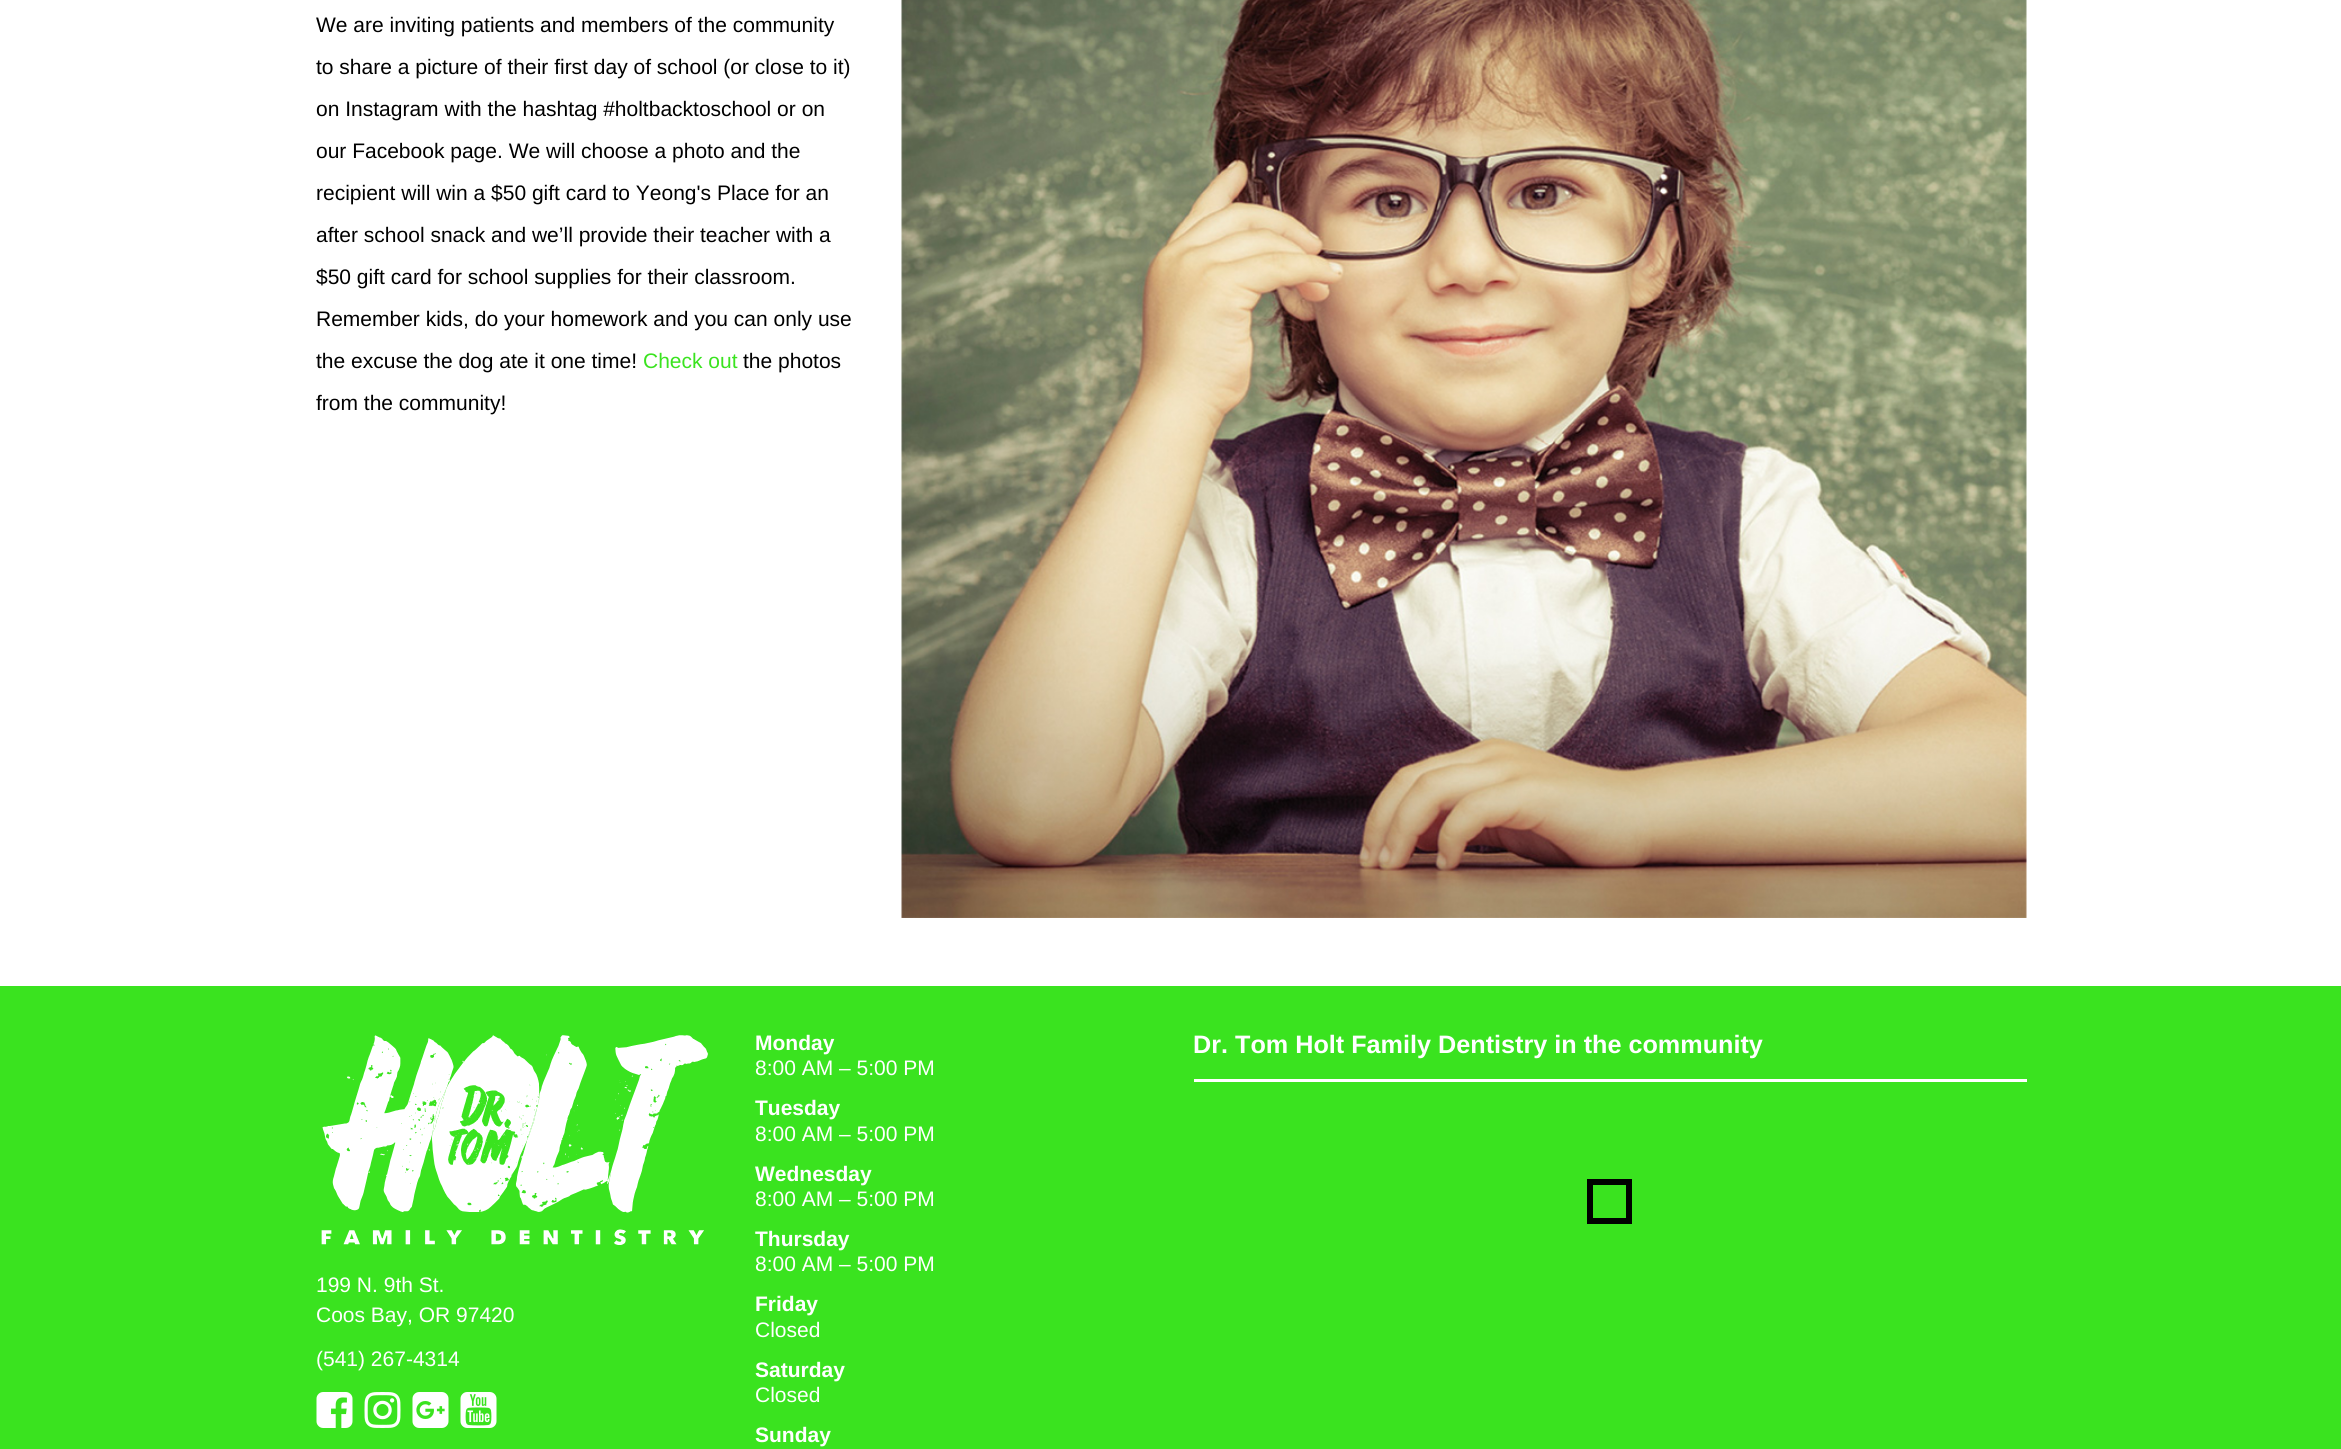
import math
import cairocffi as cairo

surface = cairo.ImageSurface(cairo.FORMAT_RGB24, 2341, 1449)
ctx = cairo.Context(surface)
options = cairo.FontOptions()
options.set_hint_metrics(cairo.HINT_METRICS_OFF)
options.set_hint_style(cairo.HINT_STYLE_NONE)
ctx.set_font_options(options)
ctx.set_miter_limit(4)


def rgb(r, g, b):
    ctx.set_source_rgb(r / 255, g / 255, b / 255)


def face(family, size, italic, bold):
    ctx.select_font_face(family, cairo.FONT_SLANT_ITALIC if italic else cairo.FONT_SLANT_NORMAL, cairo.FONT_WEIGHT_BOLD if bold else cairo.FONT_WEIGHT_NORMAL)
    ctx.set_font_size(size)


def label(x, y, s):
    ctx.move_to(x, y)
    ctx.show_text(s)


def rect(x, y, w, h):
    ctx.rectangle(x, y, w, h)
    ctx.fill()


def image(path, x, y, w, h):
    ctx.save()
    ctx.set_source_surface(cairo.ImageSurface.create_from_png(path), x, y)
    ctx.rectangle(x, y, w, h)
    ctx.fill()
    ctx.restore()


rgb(255, 255, 255)
ctx.paint()
face('Liberation Sans', 21, 0, 0)
rgb(0, 0, 0)
label(316, 32, 'We are inviting patients and members of the community')
label(316, 74, 'to share a picture of their first day of school (or close to it)')
label(316, 116, 'on Instagram with the hashtag #holtbacktoschool or on')
label(316, 158, 'our Facebook page. We will choose a photo and the')
label(316, 200, 'recipient will win a $50 gift card to Yeong\'s Place for an')
label(316, 242, 'after school snack and we’ll provide their teacher with a')
label(316, 284, '$50 gift card for school supplies for their classroom.')
label(316, 326, 'Remember kids, do your homework and you can only use')
label(316, 368, 'the excuse the dog ate it one time!')
rgb(58, 227, 31)
label(643, 368, 'Check out')
rgb(0, 0, 0)
label(743, 368, 'the photos')
label(316, 410, 'from the community!')
image('image0.png', 901, 0, 1126, 918)
rgb(58, 227, 31)
rect(0, 986, 2341, 463)
face('Liberation Sans', 21, 0, 1)
rgb(255, 255, 255)
label(755, 1050, 'Monday')
face('Liberation Sans', 21, 0, 0)
label(755, 1075, '8:00 AM – 5:00 PM')
face('Liberation Sans', 21, 0, 1)
label(755, 1115, 'Tuesday')
face('Liberation Sans', 21, 0, 0)
label(755, 1141, '8:00 AM – 5:00 PM')
face('Liberation Sans', 21, 0, 1)
label(755, 1181, 'Wednesday')
face('Liberation Sans', 21, 0, 0)
label(755, 1206, '8:00 AM – 5:00 PM')
face('Liberation Sans', 21, 0, 1)
label(755, 1246, 'Thursday')
face('Liberation Sans', 21, 0, 0)
label(755, 1271, '8:00 AM – 5:00 PM')
face('Liberation Sans', 21, 0, 1)
label(755, 1311, 'Friday')
face('Liberation Sans', 21, 0, 0)
label(755, 1337, 'Closed')
face('Liberation Sans', 21, 0, 1)
label(755, 1377, 'Saturday')
face('Liberation Sans', 21, 0, 0)
label(755, 1402, 'Closed')
face('Liberation Sans', 21, 0, 1)
label(755, 1442, 'Sunday')
rect(1194, 1079, 833, 3)
face('Liberation Sans', 25.2, 0, 1)
label(1193, 1053, 'Dr. Tom Holt Family Dentistry in the community')
ctx.rectangle(1590, 1182, 39, 39)
rgb(0, 0, 0)
ctx.set_line_width(6)
ctx.stroke()
image('image1.png', 321, 1035, 387, 210)
face('Liberation Sans', 21, 0, 0)
rgb(255, 255, 255)
label(316, 1292, '199 N. 9th St.')
label(316, 1322, 'Coos Bay, OR 97420')
label(316, 1366, '(541) 267-4314')
image('image2.png', 316, 1392, 37, 36)
image('image3.png', 364, 1392, 37, 36)
image('image4.png', 412, 1392, 37, 36)
image('image5.png', 460, 1392, 37, 36)
surface.write_to_png('render.png')
